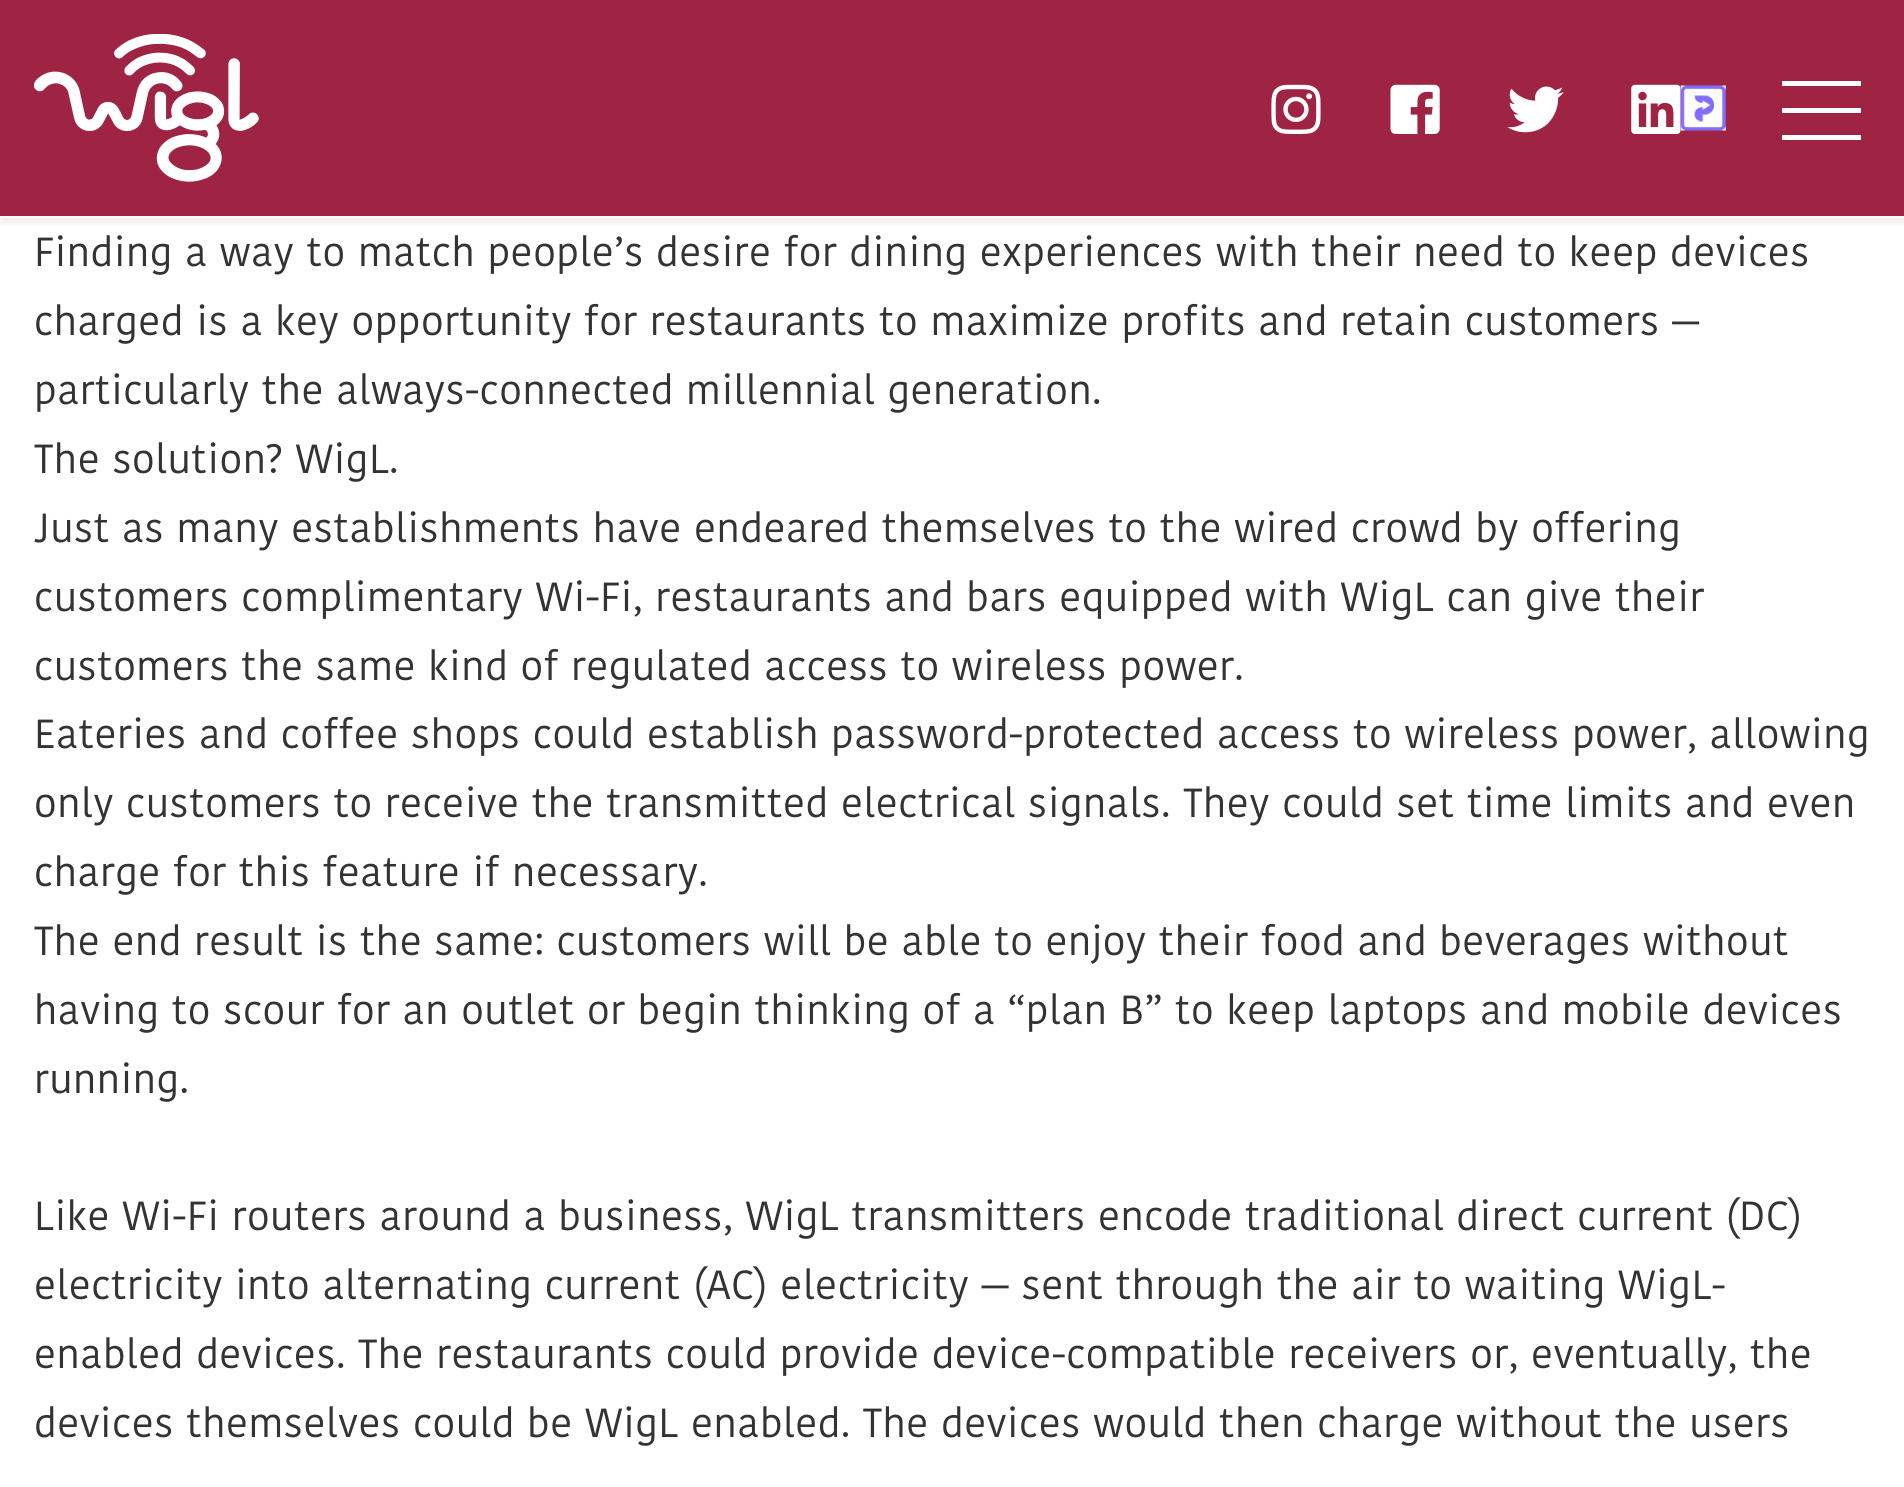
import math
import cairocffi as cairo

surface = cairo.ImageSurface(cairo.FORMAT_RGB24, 1904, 1487)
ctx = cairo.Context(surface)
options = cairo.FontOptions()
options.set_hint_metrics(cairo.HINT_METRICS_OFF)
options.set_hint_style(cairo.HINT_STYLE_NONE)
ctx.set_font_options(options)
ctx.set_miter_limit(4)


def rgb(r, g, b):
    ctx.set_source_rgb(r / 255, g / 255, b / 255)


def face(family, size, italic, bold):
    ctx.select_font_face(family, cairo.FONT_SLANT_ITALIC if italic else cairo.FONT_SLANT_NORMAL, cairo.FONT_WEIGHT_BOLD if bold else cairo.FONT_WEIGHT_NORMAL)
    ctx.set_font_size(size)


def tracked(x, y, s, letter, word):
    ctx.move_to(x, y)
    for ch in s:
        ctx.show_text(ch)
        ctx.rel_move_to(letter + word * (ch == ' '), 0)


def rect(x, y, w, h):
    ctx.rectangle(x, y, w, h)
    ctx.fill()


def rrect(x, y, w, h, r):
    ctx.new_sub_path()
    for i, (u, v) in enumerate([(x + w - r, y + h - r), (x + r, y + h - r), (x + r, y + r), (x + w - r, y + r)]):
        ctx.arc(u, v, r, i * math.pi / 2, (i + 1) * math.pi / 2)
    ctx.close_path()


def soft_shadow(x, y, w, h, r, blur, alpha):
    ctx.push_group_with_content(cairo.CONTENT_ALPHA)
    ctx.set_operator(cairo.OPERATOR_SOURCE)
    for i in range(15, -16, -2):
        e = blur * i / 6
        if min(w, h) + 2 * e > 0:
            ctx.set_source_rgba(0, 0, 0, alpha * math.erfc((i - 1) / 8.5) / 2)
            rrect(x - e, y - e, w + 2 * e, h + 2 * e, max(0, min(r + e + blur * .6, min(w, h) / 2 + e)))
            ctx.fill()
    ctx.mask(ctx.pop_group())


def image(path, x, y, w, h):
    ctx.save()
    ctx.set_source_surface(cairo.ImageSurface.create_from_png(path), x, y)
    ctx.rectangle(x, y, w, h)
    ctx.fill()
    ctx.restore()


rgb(255, 255, 255)
ctx.paint()
ctx.save()
ctx.rectangle(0, 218, 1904, 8)
ctx.clip()
rgb(0, 0, 0)
soft_shadow(0, 5, 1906, 218, 0, 4.5, 0.07)
ctx.restore()
rgb(159, 36, 68)
rect(0, 0, 1904, 216)
image('image0.png', 34, 34, 225, 148)
image('image1.png', 1271, 84, 50, 50)
image('image2.png', 1390, 84, 50, 50)
image('image3.png', 1507, 86, 57, 47)
image('image5.png', 1680, 85, 46, 46)
image('image4.png', 1631, 84, 50, 50)
rgb(255, 255, 255)
rect(1782, 81, 79, 5)
rect(1782, 108, 79, 5)
rect(1782, 135, 79, 5)
face('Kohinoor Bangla', 40.5, 0, 0)
rgb(51, 51, 51)
tracked(34, 266, 'Finding a way to match people’s desire for dining experiences with their need to keep devices', 0.55, 0)
tracked(34, 335, 'charged is a key opportunity for restaurants to maximize profits and retain customers —', 0.55, 0)
tracked(34, 404, 'particularly the always-connected millennial generation.', 0.55, 0)
tracked(34, 473, 'The solution? WigL.', 0.55, 0)
tracked(34, 542, 'Just as many establishments have endeared themselves to the wired crowd by offering', 0.55, 0)
tracked(34, 611, 'customers complimentary Wi-Fi, restaurants and bars equipped with WigL can give their', 0.55, 0)
tracked(34, 680, 'customers the same kind of regulated access to wireless power.', 0.55, 0)
tracked(34, 748, 'Eateries and coffee shops could establish password-protected access to wireless power, allowing', 0.55, 0)
tracked(34, 817, 'only customers to receive the transmitted electrical signals. They could set time limits and even', 0.55, 0)
tracked(34, 886, 'charge for this feature if necessary.', 0.55, 0)
tracked(34, 955, 'The end result is the same: customers will be able to enjoy their food and beverages without', 0.55, 0)
tracked(34, 1024, 'having to scour for an outlet or begin thinking of a “plan B” to keep laptops and mobile devices', 0.55, 0)
tracked(34, 1093, 'running.', 0.55, 0)
tracked(34, 1230, 'Like Wi-Fi routers around a business, WigL transmitters encode traditional direct current (DC)', 0.55, 0)
tracked(34, 1299, 'electricity into alternating current (AC) electricity — sent through the air to waiting WigL-', 0.55, 0)
tracked(34, 1368, 'enabled devices. The restaurants could provide device-compatible receivers or, eventually, the', 0.55, 0)
tracked(34, 1437, 'devices themselves could be WigL enabled. The devices would then charge without the users', 0.55, 0)
surface.write_to_png('render.png')
